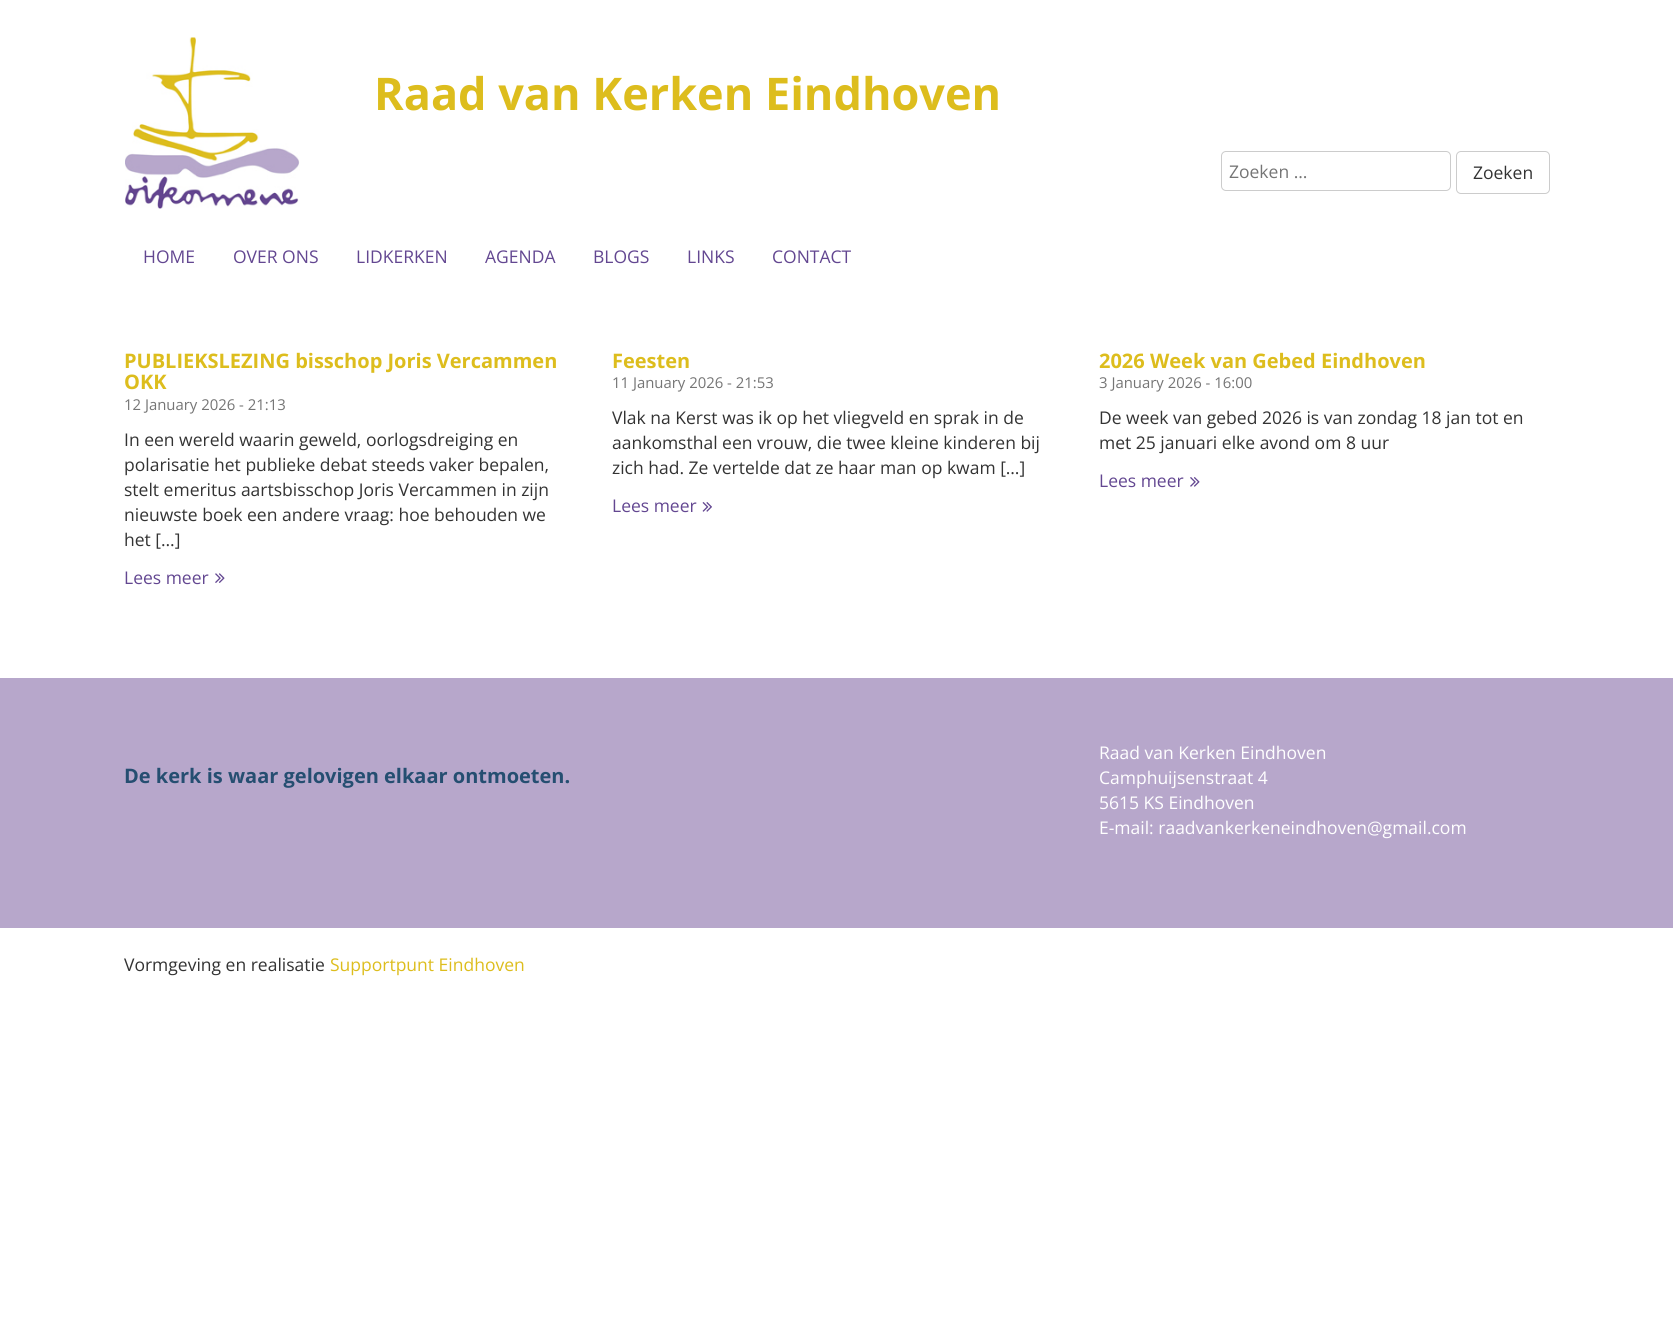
import math
import cairocffi as cairo

surface = cairo.ImageSurface(cairo.FORMAT_RGB24, 1673, 1325)
ctx = cairo.Context(surface)
options = cairo.FontOptions()
options.set_hint_metrics(cairo.HINT_METRICS_OFF)
options.set_hint_style(cairo.HINT_STYLE_NONE)
ctx.set_font_options(options)
ctx.set_miter_limit(4)


def rgb(r, g, b):
    ctx.set_source_rgb(r / 255, g / 255, b / 255)


def face(family, size, italic, bold):
    ctx.select_font_face(family, cairo.FONT_SLANT_ITALIC if italic else cairo.FONT_SLANT_NORMAL, cairo.FONT_WEIGHT_BOLD if bold else cairo.FONT_WEIGHT_NORMAL)
    ctx.set_font_size(size)


def label(x, y, s):
    ctx.move_to(x, y)
    ctx.show_text(s)


def rect(x, y, w, h):
    ctx.rectangle(x, y, w, h)
    ctx.fill()


def rrect(x, y, w, h, r):
    ctx.new_sub_path()
    for i, (u, v) in enumerate([(x + w - r, y + h - r), (x + r, y + h - r), (x + r, y + r), (x + w - r, y + r)]):
        ctx.arc(u, v, r, i * math.pi / 2, (i + 1) * math.pi / 2)
    ctx.close_path()


def image(path, x, y, w, h):
    ctx.save()
    ctx.set_source_surface(cairo.ImageSurface.create_from_png(path), x, y)
    ctx.rectangle(x, y, w, h)
    ctx.fill()
    ctx.restore()


rgb(255, 255, 255)
ctx.paint()
image('image0.png', 125, 37, 175, 172)
face('Open Sans', 45, 0, 1)
rgb(221, 189, 29)
label(374, 110, 'Raad van Kerken Eindhoven')
rrect(1221.5, 151.5, 229, 39, 4.5)
rgb(204, 204, 204)
ctx.set_line_width(1)
ctx.stroke()
face('Open Sans', 17.5, 0, 0)
rgb(117, 117, 117)
label(1229, 178, 'Zoeken …')
rrect(1456.5, 151.5, 93, 42, 4.5)
rgb(204, 204, 204)
ctx.stroke()
rgb(51, 51, 51)
label(1473, 179, 'Zoeken')
rgb(99, 71, 145)
label(143, 263, 'HOME')
label(233, 263, 'OVER ONS')
label(356, 263, 'LIDKERKEN')
label(485, 263, 'AGENDA')
label(593, 263, 'BLOGS')
label(687, 263, 'LINKS')
label(772, 263, 'CONTACT')
face('Open Sans', 20, 0, 1)
rgb(221, 189, 29)
label(124, 368, 'PUBLIEKSLEZING bisschop Joris Vercammen')
label(124, 389, 'OKK')
face('Open Sans', 14.9, 0, 0)
rgb(117, 117, 117)
label(124, 410, '12 January 2026 - 21:13')
face('Open Sans', 17.5, 0, 0)
rgb(51, 51, 51)
label(124, 446, 'In een wereld waarin geweld, oorlogsdreiging en')
label(124, 471, 'polarisatie het publieke debat steeds vaker bepalen,')
label(124, 496, 'stelt emeritus aartsbisschop Joris Vercammen in zijn')
label(124, 521, 'nieuwste boek een andere vraag: hoe behouden we')
label(124, 546, 'het […]')
rgb(99, 71, 145)
label(124, 584, 'Lees meer')
image('image1.png', 215, 573, 10, 10)
face('Open Sans', 20, 0, 1)
rgb(221, 189, 29)
label(612, 368, 'Feesten')
face('Open Sans', 14.9, 0, 0)
rgb(117, 117, 117)
label(612, 388, '11 January 2026 - 21:53')
face('Open Sans', 17.5, 0, 0)
rgb(51, 51, 51)
label(612, 424, 'Vlak na Kerst was ik op het vliegveld en sprak in de')
label(612, 449, 'aankomsthal een vrouw, die twee kleine kinderen bij')
label(612, 474, 'zich had. Ze vertelde dat ze haar man op kwam […]')
rgb(99, 71, 145)
label(612, 512, 'Lees meer')
image('image2.png', 702, 502, 10, 10)
face('Open Sans', 20, 0, 1)
rgb(221, 189, 29)
label(1099, 368, '2026 Week van Gebed Eindhoven')
face('Open Sans', 14.9, 0, 0)
rgb(117, 117, 117)
label(1099, 388, '3 January 2026 - 16:00')
face('Open Sans', 17.5, 0, 0)
rgb(51, 51, 51)
label(1099, 424, 'De week van gebed 2026 is van zondag 18 jan tot en')
label(1099, 449, 'met 25 januari elke avond om 8 uur')
rgb(99, 71, 145)
label(1099, 487, 'Lees meer')
image('image3.png', 1190, 477, 10, 10)
rgb(183, 167, 203)
rect(0, 678, 1673, 250)
face('Open Sans', 20, 0, 1)
rgb(37, 78, 113)
label(124, 783, 'De kerk is waar gelovigen elkaar ontmoeten.')
face('Open Sans', 17.5, 0, 0)
rgb(255, 255, 255)
label(1099, 759, 'Raad van Kerken Eindhoven')
label(1099, 784, 'Camphuijsenstraat 4')
label(1099, 809, '5615 KS Eindhoven')
label(1099, 834, 'E-mail: raadvankerkeneindhoven@gmail.com')
rgb(51, 51, 51)
label(124, 971, 'Vormgeving en realisatie')
rgb(221, 189, 29)
label(330, 971, 'Supportpunt Eindhoven')
surface.write_to_png('render.png')
